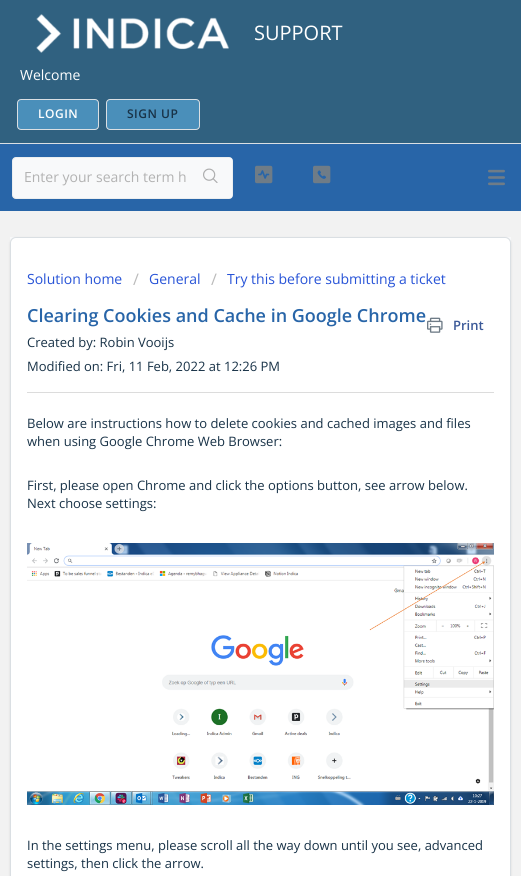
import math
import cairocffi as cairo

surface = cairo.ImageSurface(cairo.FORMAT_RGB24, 521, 876)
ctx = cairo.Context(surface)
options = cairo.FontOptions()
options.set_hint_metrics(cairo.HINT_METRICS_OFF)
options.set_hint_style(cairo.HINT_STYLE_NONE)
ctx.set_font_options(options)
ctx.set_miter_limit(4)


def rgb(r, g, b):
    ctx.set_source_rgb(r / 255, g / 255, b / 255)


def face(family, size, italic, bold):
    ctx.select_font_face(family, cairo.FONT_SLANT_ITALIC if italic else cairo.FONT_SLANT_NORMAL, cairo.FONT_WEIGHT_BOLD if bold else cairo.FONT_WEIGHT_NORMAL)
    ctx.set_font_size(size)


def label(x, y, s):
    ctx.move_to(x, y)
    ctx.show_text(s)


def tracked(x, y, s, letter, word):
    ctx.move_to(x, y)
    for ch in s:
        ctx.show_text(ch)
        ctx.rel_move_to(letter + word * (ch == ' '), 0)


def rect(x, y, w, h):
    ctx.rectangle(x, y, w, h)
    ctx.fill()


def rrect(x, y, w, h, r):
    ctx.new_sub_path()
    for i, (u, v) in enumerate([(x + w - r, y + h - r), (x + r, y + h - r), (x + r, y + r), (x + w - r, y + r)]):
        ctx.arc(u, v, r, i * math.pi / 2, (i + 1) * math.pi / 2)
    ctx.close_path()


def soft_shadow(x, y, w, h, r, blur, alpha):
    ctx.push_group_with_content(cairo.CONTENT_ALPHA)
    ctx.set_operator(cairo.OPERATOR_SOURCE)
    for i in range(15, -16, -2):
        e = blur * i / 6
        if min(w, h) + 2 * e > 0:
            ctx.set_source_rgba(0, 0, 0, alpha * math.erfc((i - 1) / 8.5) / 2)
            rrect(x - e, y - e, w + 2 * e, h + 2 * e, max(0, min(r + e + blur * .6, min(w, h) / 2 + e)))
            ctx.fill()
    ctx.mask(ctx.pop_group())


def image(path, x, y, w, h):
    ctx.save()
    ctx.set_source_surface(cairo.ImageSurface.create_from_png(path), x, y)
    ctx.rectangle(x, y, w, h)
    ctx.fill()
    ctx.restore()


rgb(242, 242, 242)
ctx.paint()
rgb(48, 97, 128)
rect(0, 0, 521, 143)
rgb(218, 223, 227)
rect(0, 143, 521, 1)
image('image0.png', 36, 14, 193, 39)
face('Open Sans', 20, 0, 0)
rgb(255, 255, 255)
label(254, 40, 'SUPPORT')
face('Open Sans', 14, 0, 0)
label(20, 80, 'Welcome')
rgb(74, 143, 186)
rrect(17.5, 99.5, 81, 30, 3.5)
ctx.fill_preserve()
rgb(218, 223, 227)
ctx.set_line_width(1)
ctx.stroke()
face('Open Sans SemiBold', 12, 0, 0)
rgb(255, 255, 255)
tracked(38, 118, 'LOGIN', 0.5, 0)
rgb(74, 143, 186)
rrect(106.5, 99.5, 93, 30, 3.5)
ctx.fill_preserve()
rgb(218, 223, 227)
ctx.stroke()
rgb(24, 50, 71)
tracked(127, 118, 'SIGN UP', 0.5, 0)
rgb(40, 101, 168)
rect(0, 144, 521, 67)
image('image1.png', 488, 169, 17, 17)
rgb(248, 249, 250)
rrect(12.5, 157.5, 220, 41, 3.5)
ctx.fill_preserve()
rgb(235, 238, 240)
ctx.stroke()
face('Open Sans', 14, 0, 0)
rgb(178, 178, 178)
label(24, 182, 'Enter your search term h')
rgb(248, 249, 250)
rrect(189, 158, 43, 40, 2)
ctx.fill()
image('image2.png', 203, 168, 15, 15)
image('image3.png', 255, 165, 18, 19)
image('image4.png', 313, 165, 18, 19)
rect(10, 237, 501, 6)
rgb(63, 63, 68)
soft_shadow(10, 238, 501, 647, 6, 1, 0.15)
rgb(255, 255, 255)
rrect(10.5, 237.5, 500, 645, 5.5)
ctx.fill_preserve()
rgb(218, 223, 227)
ctx.stroke()
rgb(39, 83, 215)
label(27, 284, 'Solution home')
face('Open Sans', 16, 0, 0)
rgb(187, 187, 187)
label(133, 285, '/')
face('Open Sans', 14, 0, 0)
rgb(39, 83, 215)
label(149, 284, 'General')
face('Open Sans', 16, 0, 0)
rgb(187, 187, 187)
label(211, 285, '/')
face('Open Sans', 14, 0, 0)
rgb(39, 83, 215)
label(227, 284, 'Try this before submitting a ticket')
face('Open Sans SemiBold', 18, 0, 0)
rgb(40, 101, 168)
label(27, 322, 'Clearing Cookies and Cache in Google Chrome')
image('image5.png', 427, 317, 16, 16)
face('Open Sans SemiBold', 13, 0, 0)
rgb(59, 89, 152)
label(453, 330, 'Print')
face('Open Sans', 13, 0, 0)
rgb(24, 50, 71)
label(27, 347, 'Created by: Robin Vooijs')
label(27, 371, 'Modified on: Fri, 11 Feb, 2022 at 12:26 PM')
rgb(220, 220, 220)
rect(27, 392, 467, 1)
rgb(24, 50, 71)
label(27, 428, 'Below are instructions how to delete cookies and cached images and files')
label(27, 446, 'when using Google Chrome Web Browser:')
label(27, 490, 'First, please open Chrome and click the options button, see arrow below.')
label(27, 508, 'Next choose settings:')
image('image6.png', 27, 543, 467, 262)
label(27, 850, 'In the settings menu, please scroll all the way down until you see, advanced')
label(27, 868, 'settings, then click the arrow.')
surface.write_to_png('render.png')
